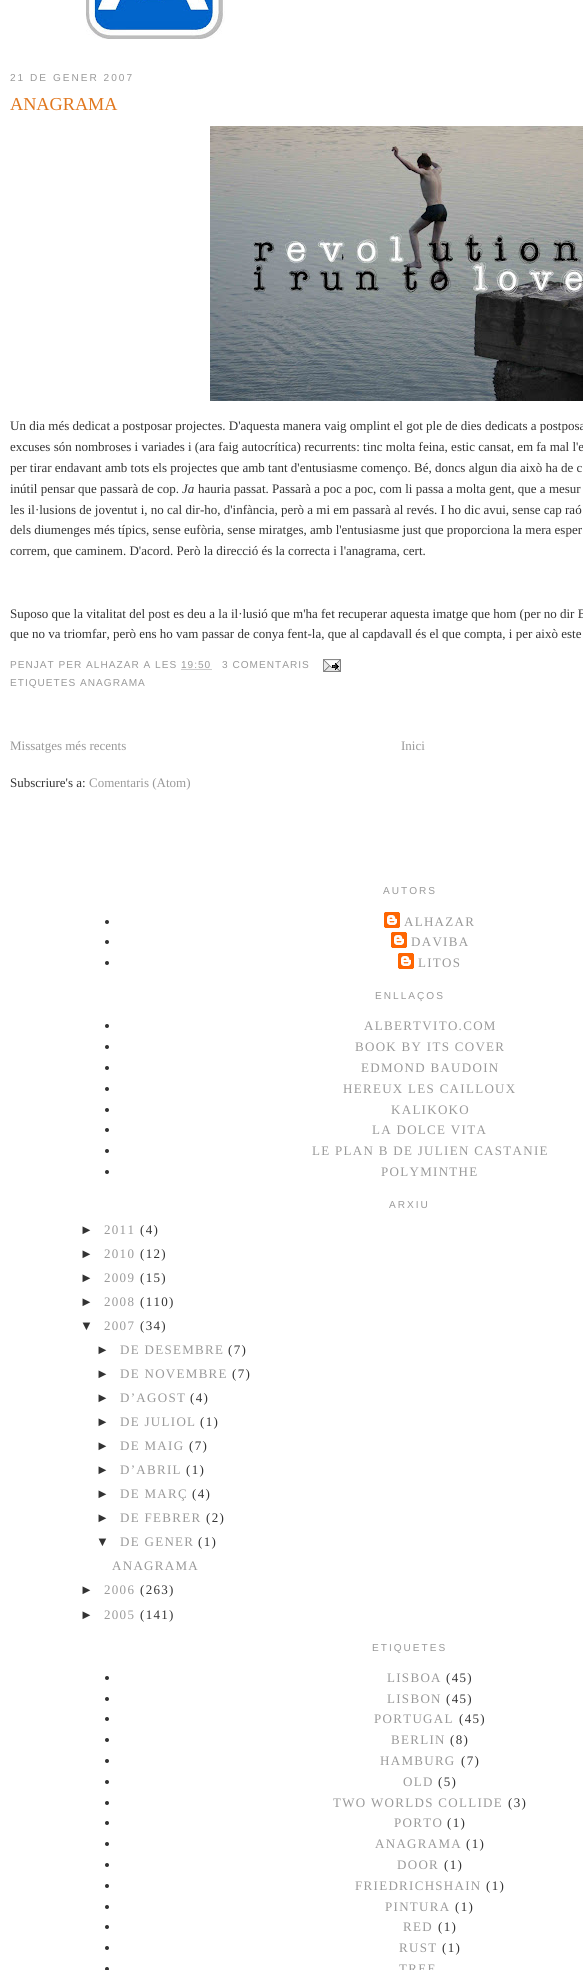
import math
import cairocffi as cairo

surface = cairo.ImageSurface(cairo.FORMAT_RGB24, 583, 1970)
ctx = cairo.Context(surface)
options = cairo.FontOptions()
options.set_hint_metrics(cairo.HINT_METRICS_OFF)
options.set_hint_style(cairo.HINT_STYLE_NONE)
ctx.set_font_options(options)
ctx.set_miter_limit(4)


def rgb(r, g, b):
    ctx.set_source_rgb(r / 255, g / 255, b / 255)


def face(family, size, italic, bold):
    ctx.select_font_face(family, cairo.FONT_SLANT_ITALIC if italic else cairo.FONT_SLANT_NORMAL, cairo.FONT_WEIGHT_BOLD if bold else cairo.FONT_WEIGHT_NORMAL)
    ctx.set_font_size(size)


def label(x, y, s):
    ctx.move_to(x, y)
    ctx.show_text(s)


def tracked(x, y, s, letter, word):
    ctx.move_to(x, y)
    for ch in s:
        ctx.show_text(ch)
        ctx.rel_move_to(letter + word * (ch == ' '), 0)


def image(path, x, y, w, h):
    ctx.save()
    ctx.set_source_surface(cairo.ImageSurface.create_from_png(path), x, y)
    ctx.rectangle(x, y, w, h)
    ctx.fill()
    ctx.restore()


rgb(255, 255, 255)
ctx.paint()
image('image0.png', 86, 0, 139, 39)
face('Liberation Sans', 10.1, 0, 0)
rgb(153, 153, 153)
tracked(10, 81, '21 DE GENER 2007', 2, 0)
face('Liberation Serif', 18.25, 0, 0)
rgb(225, 119, 30)
label(10, 110, 'ANAGRAMA')
image('image1.png', 210, 126, 373, 275)
face('Liberation Serif', 13, 0, 0)
rgb(51, 51, 51)
label(10, 430, 'Un dia més dedicat a postposar projectes. D\'aquesta manera vaig omplint el got ple de dies dedicats a postposa')
label(10, 451, 'excuses són nombroses i variades i (ara faig autocrítica) recurrents: tinc molta feina, estic cansat, em fa mal l\'e')
label(10, 472, 'per tirar endavant amb tots els projectes que amb tant d\'entusiasme començo. Bé, doncs algun dia això ha de c')
label(10, 493, 'inútil pensar que passarà de cop.')
face('Liberation Serif', 13, 1, 0)
label(182, 493, 'Ja')
face('Liberation Serif', 13, 0, 0)
label(198, 493, 'hauria passat. Passarà a poc a poc, com li passa a molta gent, que a mesur')
label(10, 514, 'les il·lusions de joventut i, no cal dir-ho, d\'infància, però a mi em passarà al revés. I ho dic avui, sense cap raó')
label(10, 534, 'dels diumenges més típics, sense eufòria, sense miratges, amb l\'entusiasme just que proporciona la mera esper')
label(10, 555, 'correm, que caminem. D\'acord. Però la direcció és la correcta i l\'anagrama, cert.')
label(10, 618, 'Suposo que la vitalitat del post es deu a la il·lusió que m\'ha fet recuperar aquesta imatge que hom (per no dir B')
label(10, 638, 'que no va triomfar, però ens ho vam passar de conya fent-la, que al capdavall és el que compta, i per això este')
face('Liberation Sans', 10.1, 0, 0)
rgb(153, 153, 153)
tracked(10, 668, 'PENJAT PER ALHAZAR A LES 19:50', 1, 0)
tracked(222, 668, '3 COMENTARIS', 1, 0)
image('image2.png', 323, 659, 18, 13)
ctx.new_path()
ctx.move_to(181.5, 669.5)
ctx.line_to(212, 669.5)
ctx.set_line_width(1)
ctx.set_dash([1, 1])
ctx.stroke()
tracked(10, 686, 'ETIQUETES ANAGRAMA', 1, 0)
face('Liberation Serif', 13, 0, 0)
label(10, 750, 'Missatges més recents')
label(401, 750, 'Inici')
rgb(51, 51, 51)
label(10, 787, 'Subscriure\'s a:')
rgb(153, 153, 153)
label(89, 787, 'Comentaris (Atom)')
face('Liberation Sans', 10.1, 0, 0)
tracked(383, 894, 'AUTORS', 2, 0)
rgb(51, 51, 51)
ctx.new_path()
ctx.arc(107, 922, 2, 0, 2 * math.pi)
ctx.fill()
image('image3.png', 384, 912, 16, 16)
face('Liberation Serif', 13, 0, 0)
rgb(153, 153, 153)
tracked(404, 926, 'ALHAZAR', 1.3, 0)
rgb(51, 51, 51)
ctx.new_path()
ctx.arc(107, 942, 2, 0, 2 * math.pi)
ctx.fill()
image('image3.png', 391, 932, 16, 16)
rgb(153, 153, 153)
tracked(411, 946, 'DAVIBA', 1.3, 0)
rgb(51, 51, 51)
ctx.new_path()
ctx.arc(107, 963, 2, 0, 2 * math.pi)
ctx.fill()
image('image3.png', 398, 953, 16, 16)
rgb(153, 153, 153)
tracked(418, 967, 'LITOS', 1.3, 0)
face('Liberation Sans', 10.1, 0, 0)
tracked(375, 999, 'ENLLAÇOS', 2, 0)
rgb(51, 51, 51)
ctx.new_path()
ctx.arc(107, 1026, 2, 0, 2 * math.pi)
ctx.fill()
face('Liberation Serif', 13, 0, 0)
rgb(153, 153, 153)
tracked(364, 1030, 'ALBERTVITO.COM', 1.3, 0)
rgb(51, 51, 51)
ctx.new_path()
ctx.arc(107, 1047, 2, 0, 2 * math.pi)
ctx.fill()
rgb(153, 153, 153)
tracked(355, 1051, 'BOOK BY ITS COVER', 1.3, 0)
rgb(51, 51, 51)
ctx.new_path()
ctx.arc(107, 1068, 2, 0, 2 * math.pi)
ctx.fill()
rgb(153, 153, 153)
tracked(361, 1072, 'EDMOND BAUDOIN', 1.3, 0)
rgb(51, 51, 51)
ctx.new_path()
ctx.arc(107, 1089, 2, 0, 2 * math.pi)
ctx.fill()
rgb(153, 153, 153)
tracked(343, 1093, 'HEREUX LES CAILLOUX', 1.3, 0)
rgb(51, 51, 51)
ctx.new_path()
ctx.arc(107, 1110, 2, 0, 2 * math.pi)
ctx.fill()
rgb(153, 153, 153)
tracked(391, 1114, 'KALIKOKO', 1.3, 0)
rgb(51, 51, 51)
ctx.new_path()
ctx.arc(107, 1130, 2, 0, 2 * math.pi)
ctx.fill()
rgb(153, 153, 153)
tracked(372, 1134, 'LA DOLCE VITA', 1.3, 0)
rgb(51, 51, 51)
ctx.new_path()
ctx.arc(107, 1151, 2, 0, 2 * math.pi)
ctx.fill()
rgb(153, 153, 153)
tracked(312, 1155, 'LE PLAN B DE JULIEN CASTANIE', 1.3, 0)
rgb(51, 51, 51)
ctx.new_path()
ctx.arc(107, 1172, 2, 0, 2 * math.pi)
ctx.fill()
rgb(153, 153, 153)
tracked(381, 1176, 'POLYMINTHE', 1.3, 0)
face('Liberation Sans', 10.1, 0, 0)
tracked(389, 1208, 'ARXIU', 2, 0)
face('Liberation Sans', 13, 0, 0)
rgb(51, 51, 51)
tracked(80, 1234, '►', 1.3, 0)
face('Liberation Serif', 13, 0, 0)
rgb(153, 153, 153)
tracked(104, 1234, '2011', 1.3, 0)
rgb(51, 51, 51)
tracked(140, 1234, '(4)', 1.3, 0)
face('Liberation Sans', 13, 0, 0)
tracked(80, 1258, '►', 1.3, 0)
face('Liberation Serif', 13, 0, 0)
rgb(153, 153, 153)
tracked(104, 1258, '2010', 1.3, 0)
rgb(51, 51, 51)
tracked(140, 1258, '(12)', 1.3, 0)
face('Liberation Sans', 13, 0, 0)
tracked(80, 1282, '►', 1.3, 0)
face('Liberation Serif', 13, 0, 0)
rgb(153, 153, 153)
tracked(104, 1282, '2009', 1.3, 0)
rgb(51, 51, 51)
tracked(140, 1282, '(15)', 1.3, 0)
face('Liberation Sans', 13, 0, 0)
tracked(80, 1306, '►', 1.3, 0)
face('Liberation Serif', 13, 0, 0)
rgb(153, 153, 153)
tracked(104, 1306, '2008', 1.3, 0)
rgb(51, 51, 51)
tracked(140, 1306, '(110)', 1.3, 0)
face('Liberation Sans', 13, 0, 0)
tracked(80, 1330, '▼', 1.3, 0)
face('Liberation Serif', 13, 0, 0)
rgb(153, 153, 153)
tracked(104, 1330, '2007', 1.3, 0)
rgb(51, 51, 51)
tracked(140, 1330, '(34)', 1.3, 0)
face('Liberation Sans', 13, 0, 0)
tracked(96, 1354, '►', 1.3, 0)
face('Liberation Serif', 13, 0, 0)
rgb(153, 153, 153)
tracked(120, 1354, 'DE DESEMBRE', 1.3, 0)
rgb(51, 51, 51)
tracked(228, 1354, '(7)', 1.3, 0)
face('Liberation Sans', 13, 0, 0)
tracked(96, 1378, '►', 1.3, 0)
face('Liberation Serif', 13, 0, 0)
rgb(153, 153, 153)
tracked(120, 1378, 'DE NOVEMBRE', 1.3, 0)
rgb(51, 51, 51)
tracked(232, 1378, '(7)', 1.3, 0)
face('Liberation Sans', 13, 0, 0)
tracked(96, 1402, '►', 1.3, 0)
face('Liberation Serif', 13, 0, 0)
rgb(153, 153, 153)
tracked(120, 1402, 'D’AGOST', 1.3, 0)
rgb(51, 51, 51)
tracked(190, 1402, '(4)', 1.3, 0)
face('Liberation Sans', 13, 0, 0)
tracked(96, 1426, '►', 1.3, 0)
face('Liberation Serif', 13, 0, 0)
rgb(153, 153, 153)
tracked(120, 1426, 'DE JULIOL', 1.3, 0)
rgb(51, 51, 51)
tracked(200, 1426, '(1)', 1.3, 0)
face('Liberation Sans', 13, 0, 0)
tracked(96, 1450, '►', 1.3, 0)
face('Liberation Serif', 13, 0, 0)
rgb(153, 153, 153)
tracked(120, 1450, 'DE MAIG', 1.3, 0)
rgb(51, 51, 51)
tracked(189, 1450, '(7)', 1.3, 0)
face('Liberation Sans', 13, 0, 0)
tracked(96, 1474, '►', 1.3, 0)
face('Liberation Serif', 13, 0, 0)
rgb(153, 153, 153)
tracked(120, 1474, 'D’ABRIL', 1.3, 0)
rgb(51, 51, 51)
tracked(186, 1474, '(1)', 1.3, 0)
face('Liberation Sans', 13, 0, 0)
tracked(96, 1498, '►', 1.3, 0)
face('Liberation Serif', 13, 0, 0)
rgb(153, 153, 153)
tracked(120, 1498, 'DE MARÇ', 1.3, 0)
rgb(51, 51, 51)
tracked(192, 1498, '(4)', 1.3, 0)
face('Liberation Sans', 13, 0, 0)
tracked(96, 1522, '►', 1.3, 0)
face('Liberation Serif', 13, 0, 0)
rgb(153, 153, 153)
tracked(120, 1522, 'DE FEBRER', 1.3, 0)
rgb(51, 51, 51)
tracked(206, 1522, '(2)', 1.3, 0)
face('Liberation Sans', 13, 0, 0)
tracked(96, 1546, '▼', 1.3, 0)
face('Liberation Serif', 13, 0, 0)
rgb(153, 153, 153)
tracked(120, 1546, 'DE GENER', 1.3, 0)
rgb(51, 51, 51)
tracked(198, 1546, '(1)', 1.3, 0)
rgb(153, 153, 153)
tracked(112, 1570, 'ANAGRAMA', 1.3, 0)
face('Liberation Sans', 13, 0, 0)
rgb(51, 51, 51)
tracked(80, 1594, '►', 1.3, 0)
face('Liberation Serif', 13, 0, 0)
rgb(153, 153, 153)
tracked(104, 1594, '2006', 1.3, 0)
rgb(51, 51, 51)
tracked(140, 1594, '(263)', 1.3, 0)
face('Liberation Sans', 13, 0, 0)
tracked(80, 1619, '►', 1.3, 0)
face('Liberation Serif', 13, 0, 0)
rgb(153, 153, 153)
tracked(104, 1619, '2005', 1.3, 0)
rgb(51, 51, 51)
tracked(140, 1619, '(141)', 1.3, 0)
face('Liberation Sans', 10.1, 0, 0)
rgb(153, 153, 153)
tracked(372, 1651, 'ETIQUETES', 2, 0)
rgb(51, 51, 51)
ctx.new_path()
ctx.arc(107, 1678, 2, 0, 2 * math.pi)
ctx.fill()
face('Liberation Serif', 13, 0, 0)
rgb(153, 153, 153)
tracked(387, 1682, 'LISBOA', 1.3, 0)
rgb(51, 51, 51)
tracked(446, 1682, '(45)', 1.3, 0)
ctx.new_path()
ctx.arc(107, 1699, 2, 0, 2 * math.pi)
ctx.fill()
rgb(153, 153, 153)
tracked(387, 1703, 'LISBON', 1.3, 0)
rgb(51, 51, 51)
tracked(446, 1703, '(45)', 1.3, 0)
ctx.new_path()
ctx.arc(107, 1719, 2, 0, 2 * math.pi)
ctx.fill()
rgb(153, 153, 153)
tracked(374, 1723, 'PORTUGAL', 1.3, 0)
rgb(51, 51, 51)
tracked(459, 1723, '(45)', 1.3, 0)
ctx.new_path()
ctx.arc(107, 1740, 2, 0, 2 * math.pi)
ctx.fill()
rgb(153, 153, 153)
tracked(391, 1744, 'BERLIN', 1.3, 0)
rgb(51, 51, 51)
tracked(450, 1744, '(8)', 1.3, 0)
ctx.new_path()
ctx.arc(107, 1761, 2, 0, 2 * math.pi)
ctx.fill()
rgb(153, 153, 153)
tracked(380, 1765, 'HAMBURG', 1.3, 0)
rgb(51, 51, 51)
tracked(461, 1765, '(7)', 1.3, 0)
ctx.new_path()
ctx.arc(107, 1782, 2, 0, 2 * math.pi)
ctx.fill()
rgb(153, 153, 153)
tracked(403, 1786, 'OLD', 1.3, 0)
rgb(51, 51, 51)
tracked(438, 1786, '(5)', 1.3, 0)
ctx.new_path()
ctx.arc(107, 1803, 2, 0, 2 * math.pi)
ctx.fill()
rgb(153, 153, 153)
tracked(333, 1807, 'TWO WORLDS COLLIDE', 1.3, 0)
rgb(51, 51, 51)
tracked(508, 1807, '(3)', 1.3, 0)
ctx.new_path()
ctx.arc(107, 1823, 2, 0, 2 * math.pi)
ctx.fill()
rgb(153, 153, 153)
tracked(394, 1827, 'PORTO', 1.3, 0)
rgb(51, 51, 51)
tracked(447, 1827, '(1)', 1.3, 0)
ctx.new_path()
ctx.arc(107, 1844, 2, 0, 2 * math.pi)
ctx.fill()
rgb(153, 153, 153)
tracked(375, 1848, 'ANAGRAMA', 1.3, 0)
rgb(51, 51, 51)
tracked(466, 1848, '(1)', 1.3, 0)
ctx.new_path()
ctx.arc(107, 1865, 2, 0, 2 * math.pi)
ctx.fill()
rgb(153, 153, 153)
tracked(397, 1869, 'DOOR', 1.3, 0)
rgb(51, 51, 51)
tracked(444, 1869, '(1)', 1.3, 0)
ctx.new_path()
ctx.arc(107, 1886, 2, 0, 2 * math.pi)
ctx.fill()
rgb(153, 153, 153)
tracked(355, 1890, 'FRIEDRICHSHAIN', 1.3, 0)
rgb(51, 51, 51)
tracked(486, 1890, '(1)', 1.3, 0)
ctx.new_path()
ctx.arc(107, 1907, 2, 0, 2 * math.pi)
ctx.fill()
rgb(153, 153, 153)
tracked(385, 1911, 'PINTURA', 1.3, 0)
rgb(51, 51, 51)
tracked(455, 1911, '(1)', 1.3, 0)
ctx.new_path()
ctx.arc(107, 1927, 2, 0, 2 * math.pi)
ctx.fill()
rgb(153, 153, 153)
tracked(403, 1931, 'RED', 1.3, 0)
rgb(51, 51, 51)
tracked(438, 1931, '(1)', 1.3, 0)
ctx.new_path()
ctx.arc(107, 1948, 2, 0, 2 * math.pi)
ctx.fill()
rgb(153, 153, 153)
tracked(399, 1952, 'RUST', 1.3, 0)
rgb(51, 51, 51)
tracked(442, 1952, '(1)', 1.3, 0)
ctx.new_path()
ctx.arc(107, 1969, 2, 0, 2 * math.pi)
ctx.fill()
rgb(153, 153, 153)
tracked(399, 1973, 'TREE', 1.3, 0)
surface.write_to_png('render.png')
